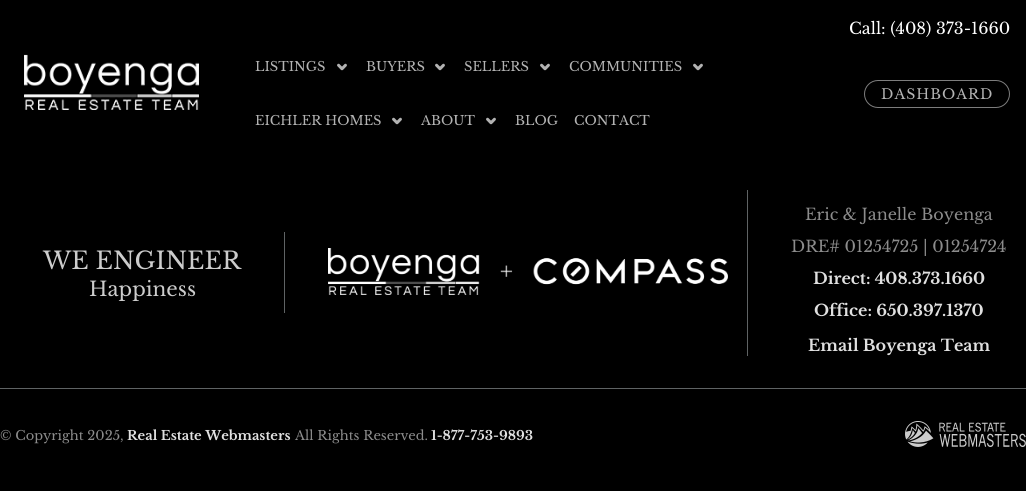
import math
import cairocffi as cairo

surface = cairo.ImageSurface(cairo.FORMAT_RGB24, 1026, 491)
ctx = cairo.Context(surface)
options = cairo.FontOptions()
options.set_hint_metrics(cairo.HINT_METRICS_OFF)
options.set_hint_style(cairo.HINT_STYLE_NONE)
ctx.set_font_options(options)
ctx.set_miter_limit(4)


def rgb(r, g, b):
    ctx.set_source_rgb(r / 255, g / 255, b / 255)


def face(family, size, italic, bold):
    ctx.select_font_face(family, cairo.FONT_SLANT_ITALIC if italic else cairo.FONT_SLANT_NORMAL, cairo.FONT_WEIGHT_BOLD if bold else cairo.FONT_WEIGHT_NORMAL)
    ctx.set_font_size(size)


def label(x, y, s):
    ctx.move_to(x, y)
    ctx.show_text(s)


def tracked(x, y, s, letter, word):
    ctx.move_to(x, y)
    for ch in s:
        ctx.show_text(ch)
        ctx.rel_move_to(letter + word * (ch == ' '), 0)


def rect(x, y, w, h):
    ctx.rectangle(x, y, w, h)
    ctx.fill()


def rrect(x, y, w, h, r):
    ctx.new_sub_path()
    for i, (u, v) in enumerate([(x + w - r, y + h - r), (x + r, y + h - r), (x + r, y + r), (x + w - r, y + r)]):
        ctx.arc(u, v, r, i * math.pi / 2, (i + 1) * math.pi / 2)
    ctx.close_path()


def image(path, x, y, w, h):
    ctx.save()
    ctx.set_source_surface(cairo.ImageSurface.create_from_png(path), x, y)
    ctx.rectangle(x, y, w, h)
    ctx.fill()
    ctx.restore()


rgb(0, 0, 0)
ctx.paint()
image('image0.png', 24, 54, 175, 56)
face('Libre Baskerville', 16, 0, 0)
rgb(255, 255, 255)
label(849, 34, 'Call: (408) 373-1660')
face('Libre Baskerville', 13, 0, 0)
rgb(179, 179, 179)
label(255, 71, 'LISTINGS')
image('image1.png', 337, 63, 10, 8)
label(366, 71, 'BUYERS')
image('image1.png', 435, 63, 10, 8)
label(464, 71, 'SELLERS')
image('image1.png', 540, 63, 10, 8)
label(569, 71, 'COMMUNITIES')
image('image1.png', 693, 63, 10, 8)
label(255, 125, 'EICHLER HOMES')
image('image1.png', 392, 117, 10, 8)
label(421, 125, 'ABOUT')
image('image1.png', 486, 117, 10, 8)
label(515, 125, 'BLOG')
label(574, 125, 'CONTACT')
rrect(864.5, 80.5, 145, 27, 13.5)
rgb(125, 125, 125)
ctx.set_line_width(1)
ctx.stroke()
face('Libre Baskerville', 14, 0, 0)
rgb(179, 179, 179)
tracked(881, 99, 'DASHBOARD', 1, 0)
rgb(95, 99, 100)
rect(0, 388, 1026, 1)
face('Libre Baskerville', 24, 0, 0)
rgb(204, 204, 204)
label(43, 269, 'WE ENGINEER')
face('Libre Baskerville', 20, 0, 0)
label(89, 296, 'Happiness')
rgb(95, 99, 100)
rect(284, 232, 1, 81)
image('image2.png', 328, 248, 400, 47)
rect(747, 190, 1, 166)
face('Libre Baskerville', 16, 0, 0)
rgb(140, 140, 140)
label(805, 220, 'Eric & Janelle Boyenga')
label(791, 252, 'DRE# 01254725 | 01254724')
face('Libre Baskerville', 16, 0, 1)
rgb(224, 224, 224)
label(813, 284, 'Direct: 408.373.1660')
label(814, 316, 'Office: 650.397.1370')
label(808, 351, 'Email Boyenga Team')
face('Libre Baskerville', 13, 0, 0)
rgb(140, 140, 140)
label(0, 440, '© Copyright 2025,')
face('Libre Baskerville', 13, 0, 1)
rgb(224, 224, 224)
label(127, 440, 'Real Estate Webmasters')
face('Libre Baskerville', 13, 0, 0)
rgb(140, 140, 140)
label(295, 440, 'All Rights Reserved.')
face('Libre Baskerville', 13, 0, 1)
rgb(224, 224, 224)
label(431, 440, '1-877-753-9893')
image('image3.png', 905, 421, 121, 26)
surface.write_to_png('render.png')
